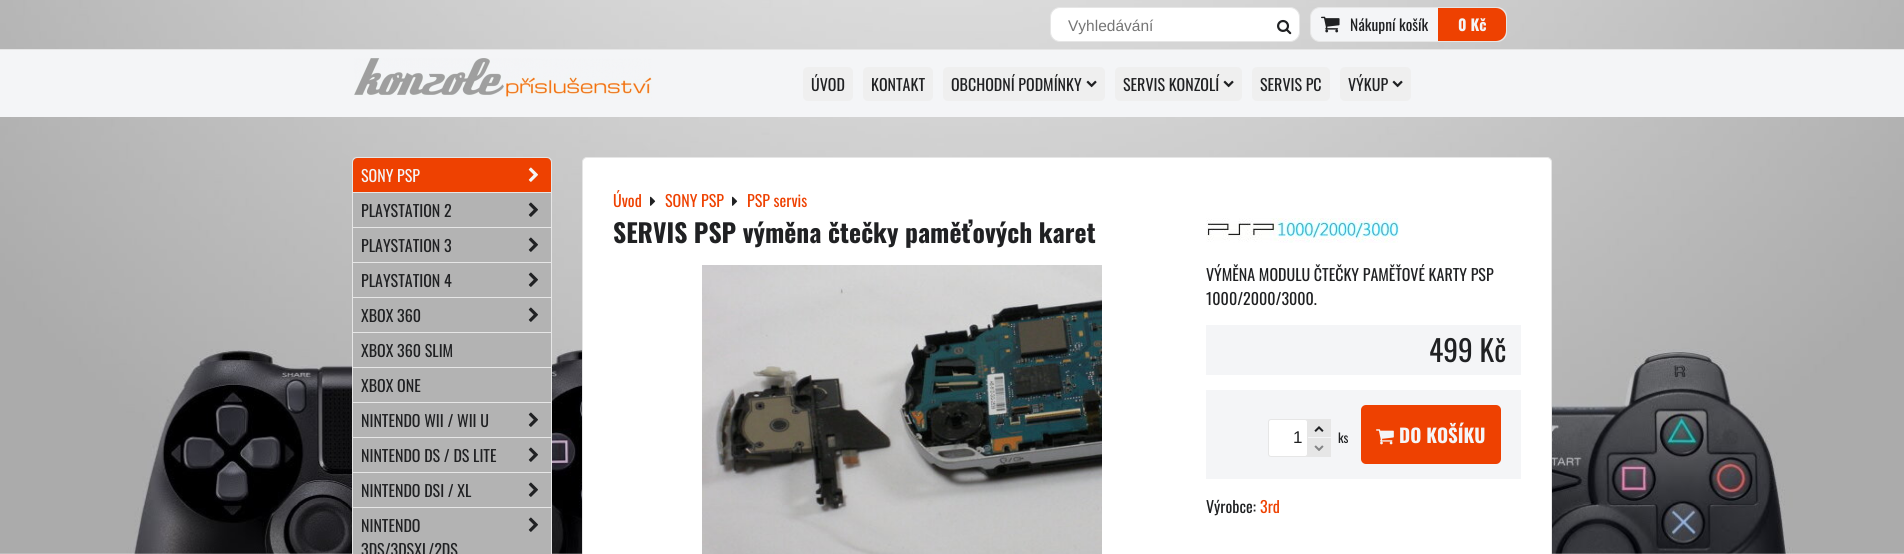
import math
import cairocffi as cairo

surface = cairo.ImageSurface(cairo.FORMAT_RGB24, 1904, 554)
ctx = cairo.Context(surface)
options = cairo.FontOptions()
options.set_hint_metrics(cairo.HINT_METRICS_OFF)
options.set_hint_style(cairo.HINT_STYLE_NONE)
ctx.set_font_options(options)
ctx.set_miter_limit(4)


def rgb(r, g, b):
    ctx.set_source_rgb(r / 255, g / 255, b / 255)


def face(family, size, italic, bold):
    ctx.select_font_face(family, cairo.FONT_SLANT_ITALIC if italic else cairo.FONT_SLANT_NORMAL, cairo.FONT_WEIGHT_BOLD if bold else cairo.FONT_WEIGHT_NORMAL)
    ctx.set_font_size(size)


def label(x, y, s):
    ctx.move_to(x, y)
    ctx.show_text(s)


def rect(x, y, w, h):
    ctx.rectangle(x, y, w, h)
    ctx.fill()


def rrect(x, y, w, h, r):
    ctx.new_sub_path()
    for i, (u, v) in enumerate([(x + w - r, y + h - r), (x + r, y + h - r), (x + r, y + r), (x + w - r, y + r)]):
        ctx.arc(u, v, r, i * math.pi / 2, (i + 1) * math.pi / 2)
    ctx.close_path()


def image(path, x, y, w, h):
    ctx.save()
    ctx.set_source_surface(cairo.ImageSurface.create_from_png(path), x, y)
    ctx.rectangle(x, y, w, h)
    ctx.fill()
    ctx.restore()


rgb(255, 255, 255)
ctx.paint()
image('image0.png', 0, 0, 1904, 554)
rgb(230, 230, 230)
rect(0, 49, 1904, 1)
rgb(255, 255, 255)
rrect(1050.5, 7.5, 249, 34, 9.5)
ctx.fill_preserve()
rgb(230, 230, 230)
ctx.set_line_width(1)
ctx.stroke()
face('Liberation Sans', 15.5, 0, 0)
rgb(117, 117, 117)
label(1068, 31, 'Vyhledávání')
image('image1.png', 1277, 19, 15, 16)
rgb(244, 245, 247)
rrect(1310.5, 7.5, 196, 34, 9.5)
ctx.fill_preserve()
rgb(230, 230, 230)
ctx.stroke()
image('image2.png', 1321, 16, 19, 17)
face('Oswald', 15.5, 0, 0)
rgb(32, 33, 35)
label(1350, 31, 'Nákupní košík')
rgb(238, 65, 1)
ctx.new_path()
ctx.move_to(1437, 8)
ctx.line_to(1496, 8)
ctx.curve_to(1501.5, 8, 1506, 12.5, 1506, 18)
ctx.line_to(1506, 31)
ctx.curve_to(1506, 36.5, 1501.5, 41, 1496, 41)
ctx.line_to(1437, 41)
ctx.close_path()
ctx.fill()
rgb(244, 245, 247)
rect(1437, 8, 1, 33)
face('Oswald', 15.5, 0, 1)
label(1458, 31, '0 Kč')
rect(0, 50, 1904, 67)
image('image3.png', 354, 58, 298, 41)
rgb(239, 239, 239)
rrect(803, 67, 50, 34, 5)
ctx.fill()
face('Oswald', 16, 0, 0)
rgb(32, 33, 35)
label(811, 91, 'ÚVOD')
rgb(239, 239, 239)
rrect(863, 67, 70, 34, 5)
ctx.fill()
rgb(32, 33, 35)
label(871, 91, 'KONTAKT')
rgb(239, 239, 239)
rrect(943, 67, 162, 34, 5)
ctx.fill()
rgb(32, 33, 35)
label(951, 91, 'OBCHODNÍ PODMÍNKY')
image('image4.png', 1086, 80, 11, 8)
rgb(239, 239, 239)
rrect(1115, 67, 127, 34, 5)
ctx.fill()
rgb(32, 33, 35)
label(1123, 91, 'SERVIS KONZOLÍ')
image('image4.png', 1223, 80, 11, 8)
rgb(239, 239, 239)
rrect(1252, 67, 78, 34, 5)
ctx.fill()
rgb(32, 33, 35)
label(1260, 91, 'SERVIS PC')
rgb(239, 239, 239)
rrect(1340, 67, 71, 34, 5)
ctx.fill()
rgb(32, 33, 35)
label(1348, 91, 'VÝKUP')
image('image4.png', 1392, 80, 11, 8)
rgb(179, 179, 179)
rrect(352.5, 157.5, 199, 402, 4.5)
ctx.fill_preserve()
rgb(230, 230, 230)
ctx.stroke()
rgb(238, 65, 1)
ctx.new_path()
ctx.move_to(358, 158)
ctx.line_to(546, 158)
ctx.curve_to(549, 158, 551, 160, 551, 163)
ctx.line_to(551, 193)
ctx.line_to(353, 193)
ctx.line_to(353, 163)
ctx.curve_to(353, 160, 355, 158, 358, 158)
ctx.close_path()
ctx.fill()
rgb(230, 230, 230)
rect(353, 192, 198, 1)
rgb(244, 245, 247)
label(361, 182, 'SONY PSP')
image('image5.png', 528, 167, 10, 15)
rgb(230, 230, 230)
rect(353, 227, 198, 1)
rgb(32, 33, 35)
label(361, 217, 'PLAYSTATION 2')
image('image6.png', 528, 202, 10, 15)
rgb(230, 230, 230)
rect(353, 262, 198, 1)
rgb(32, 33, 35)
label(361, 252, 'PLAYSTATION 3')
image('image6.png', 528, 237, 10, 15)
rgb(230, 230, 230)
rect(353, 297, 198, 1)
rgb(32, 33, 35)
label(361, 287, 'PLAYSTATION 4')
image('image6.png', 528, 272, 10, 15)
rgb(230, 230, 230)
rect(353, 332, 198, 1)
rgb(32, 33, 35)
label(361, 322, 'XBOX 360')
image('image6.png', 528, 307, 10, 15)
rgb(230, 230, 230)
rect(353, 367, 198, 1)
rgb(32, 33, 35)
label(361, 357, 'XBOX 360 SLIM')
rgb(230, 230, 230)
rect(353, 402, 198, 1)
rgb(32, 33, 35)
label(361, 392, 'XBOX ONE')
rgb(230, 230, 230)
rect(353, 437, 198, 1)
rgb(32, 33, 35)
label(361, 427, 'NINTENDO WII / WII U')
image('image6.png', 528, 412, 10, 15)
rgb(230, 230, 230)
rect(353, 472, 198, 1)
rgb(32, 33, 35)
label(361, 462, 'NINTENDO DS / DS LITE')
image('image6.png', 528, 447, 10, 15)
rgb(230, 230, 230)
rect(353, 507, 198, 1)
rgb(32, 33, 35)
label(361, 497, 'NINTENDO DSI / XL')
image('image6.png', 528, 482, 10, 15)
label(361, 532, 'NINTENDO')
image('image6.png', 528, 517, 10, 15)
label(361, 556, '3DS/3DSXL/2DS')
rgb(255, 255, 255)
rrect(582.5, 157.5, 969, 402, 4.5)
ctx.fill_preserve()
rgb(230, 230, 230)
ctx.stroke()
rgb(238, 65, 1)
label(613, 207, 'Úvod')
image('image7.png', 650, 196, 6, 10)
label(665, 207, 'SONY PSP')
image('image7.png', 732, 196, 6, 10)
label(747, 207, 'PSP servis')
face('Oswald', 25.6, 0, 1)
rgb(32, 33, 35)
label(613, 243, 'SERVIS PSP výměna čtečky paměťových karet')
image('image8.png', 702, 265, 400, 289)
image('image9.png', 1206, 218, 193, 25)
face('Oswald', 16, 0, 0)
label(1206, 281, 'VÝMĚNA MODULU ČTEČKY PAMĚŤOVÉ KARTY PSP')
label(1206, 305, '1000/2000/3000.')
rgb(244, 245, 247)
rect(1206, 325, 315, 50)
face('Oswald', 29.5, 0, 0)
rgb(32, 33, 35)
label(1429, 362, '499 Kč')
rgb(244, 245, 247)
rect(1206, 390, 315, 89)
rgb(230, 230, 230)
rect(1305, 419, 26, 38)
rgb(255, 255, 255)
rrect(1268.5, 419.5, 39, 37, 2.5)
ctx.fill_preserve()
rgb(230, 230, 230)
ctx.stroke()
face('Liberation Sans', 17, 0, 0)
rgb(32, 33, 35)
label(1293, 443, '1')
image('image10.png', 1314, 426, 10, 6)
rgb(244, 245, 247)
rect(1308, 437, 23, 1)
image('image11.png', 1314, 445, 10, 6)
face('Oswald', 13, 0, 0)
rgb(32, 33, 35)
label(1338, 443, 'ks')
rgb(238, 65, 1)
rrect(1361, 405, 140, 59, 5)
ctx.fill()
image('image12.png', 1376, 429, 18, 16)
face('Oswald', 19, 0, 1)
rgb(244, 245, 247)
label(1399, 443, 'DO KOŠÍKU')
face('Oswald', 16, 0, 0)
rgb(32, 33, 35)
label(1206, 513, 'Výrobce:')
rgb(238, 65, 1)
label(1260, 513, '3rd')
surface.write_to_png('render.png')
